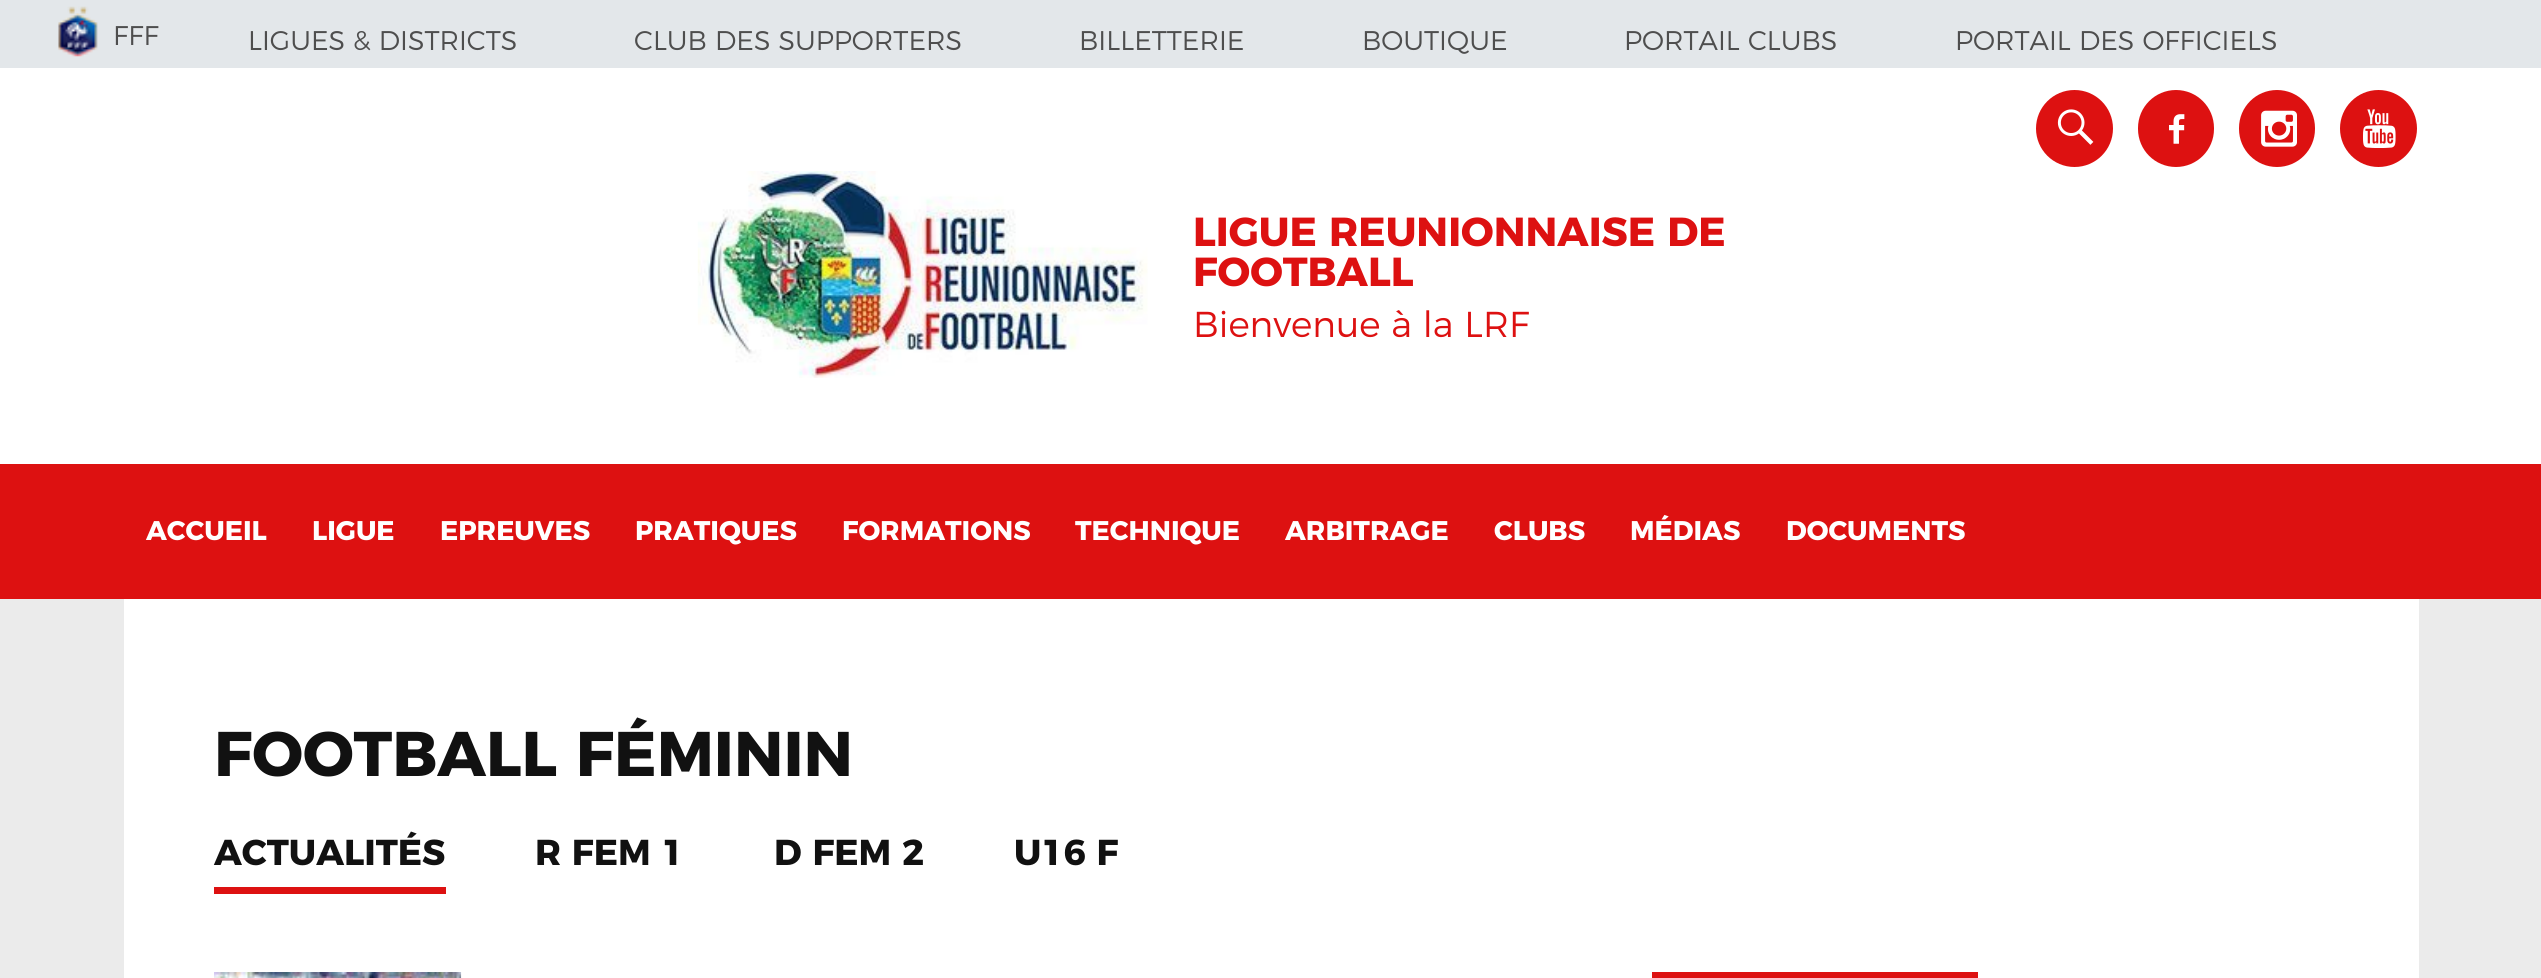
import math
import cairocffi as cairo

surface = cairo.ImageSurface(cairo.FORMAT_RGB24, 2541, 978)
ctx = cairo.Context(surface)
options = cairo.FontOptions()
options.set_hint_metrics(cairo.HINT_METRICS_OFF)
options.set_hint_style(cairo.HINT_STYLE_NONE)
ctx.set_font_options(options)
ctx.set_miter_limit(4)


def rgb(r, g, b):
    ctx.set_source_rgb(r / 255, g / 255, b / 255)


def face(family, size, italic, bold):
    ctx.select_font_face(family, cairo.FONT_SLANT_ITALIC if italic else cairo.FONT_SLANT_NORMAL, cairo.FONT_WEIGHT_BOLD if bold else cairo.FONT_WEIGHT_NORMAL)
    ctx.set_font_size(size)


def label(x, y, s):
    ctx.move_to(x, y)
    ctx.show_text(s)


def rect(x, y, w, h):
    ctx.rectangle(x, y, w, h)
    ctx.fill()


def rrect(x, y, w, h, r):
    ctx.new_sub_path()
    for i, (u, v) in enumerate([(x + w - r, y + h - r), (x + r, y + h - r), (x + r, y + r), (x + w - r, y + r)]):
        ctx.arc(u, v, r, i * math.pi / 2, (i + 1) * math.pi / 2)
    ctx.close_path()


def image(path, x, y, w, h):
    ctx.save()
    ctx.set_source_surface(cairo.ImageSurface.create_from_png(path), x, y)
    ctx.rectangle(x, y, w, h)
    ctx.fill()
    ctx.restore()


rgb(235, 235, 235)
ctx.paint()
rgb(227, 231, 234)
rect(0, 0, 2541, 68)
image('image0.png', 58, 6, 40, 51)
face('Montserrat Light', 27, 0, 0)
rgb(78, 78, 78)
label(113, 45, 'FFF')
label(248, 50, 'LIGUES & DISTRICTS')
label(634, 50, 'CLUB DES SUPPORTERS')
label(1079, 50, 'BILLETTERIE')
label(1362, 50, 'BOUTIQUE')
label(1624, 50, 'PORTAIL CLUBS')
label(1955, 50, 'PORTAIL DES OFFICIELS')
rgb(255, 255, 255)
rect(0, 68, 2541, 396)
rgb(221, 17, 17)
ctx.new_path()
ctx.arc(2074.5, 128.5, 38.5, 0, 2 * math.pi)
ctx.fill()
image('image1.png', 2057, 109, 37, 36)
rrect(2138, 90, 76, 77, 38)
ctx.fill()
image('image2.png', 2169, 114, 16, 30)
rrect(2239, 90, 76, 77, 38)
ctx.fill()
image('image3.png', 2261, 110, 36, 37)
ctx.arc(2378.5, 128.5, 38.5, 0, 2 * math.pi)
ctx.fill()
image('image4.png', 2363, 109, 33, 39)
image('image5.png', 697, 171, 451, 207)
face('Montserrat', 40.5, 0, 1)
label(1193, 246, 'LIGUE REUNIONNAISE DE')
label(1193, 286, 'FOOTBALL')
face('Montserrat Light', 36, 0, 0)
label(1193, 337, 'Bienvenue à la LRF')
rect(0, 464, 2541, 135)
face('Montserrat', 27, 0, 1)
rgb(255, 255, 255)
label(146, 540, 'ACCUEIL')
label(312, 540, 'LIGUE')
label(440, 540, 'EPREUVES')
label(635, 540, 'PRATIQUES')
label(842, 540, 'FORMATIONS')
label(1075, 540, 'TECHNIQUE')
label(1285, 540, 'ARBITRAGE')
label(1494, 540, 'CLUBS')
label(1630, 540, 'MÉDIAS')
label(1786, 540, 'DOCUMENTS')
rect(124, 599, 2295, 379)
face('Montserrat', 63, 0, 1)
rgb(17, 17, 17)
label(214, 776, 'FOOTBALL FÉMININ')
rgb(221, 17, 17)
rect(214, 887, 232, 7)
face('Montserrat', 36, 0, 1)
rgb(17, 17, 17)
label(214, 865, 'ACTUALITÉS')
label(535, 865, 'R FEM 1')
label(774, 865, 'D FEM 2')
label(1014, 865, 'U16 F')
image('image6.png', 214, 972, 248, 6)
rgb(221, 17, 17)
rect(1652, 972, 326, 6)
surface.write_to_png('render.png')
